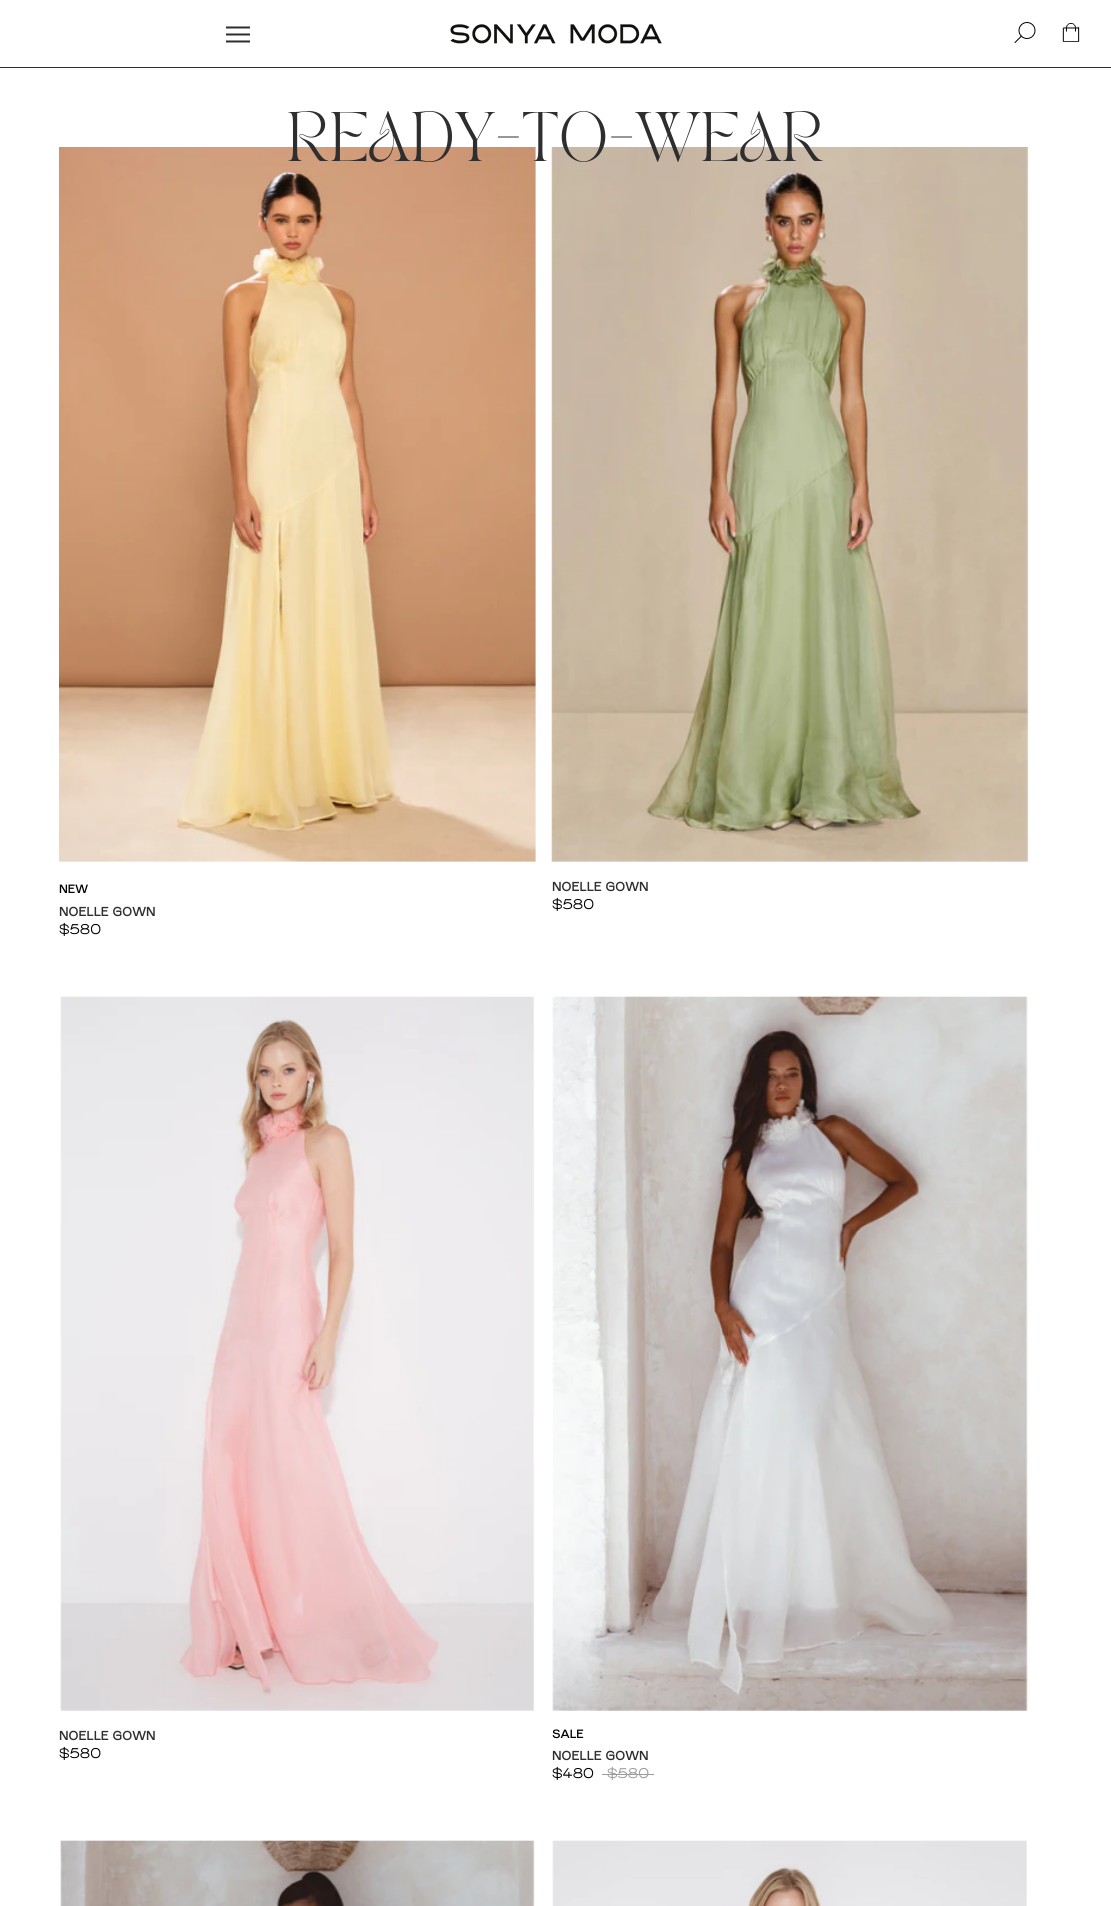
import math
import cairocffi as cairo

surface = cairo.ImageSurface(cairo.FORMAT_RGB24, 1111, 1906)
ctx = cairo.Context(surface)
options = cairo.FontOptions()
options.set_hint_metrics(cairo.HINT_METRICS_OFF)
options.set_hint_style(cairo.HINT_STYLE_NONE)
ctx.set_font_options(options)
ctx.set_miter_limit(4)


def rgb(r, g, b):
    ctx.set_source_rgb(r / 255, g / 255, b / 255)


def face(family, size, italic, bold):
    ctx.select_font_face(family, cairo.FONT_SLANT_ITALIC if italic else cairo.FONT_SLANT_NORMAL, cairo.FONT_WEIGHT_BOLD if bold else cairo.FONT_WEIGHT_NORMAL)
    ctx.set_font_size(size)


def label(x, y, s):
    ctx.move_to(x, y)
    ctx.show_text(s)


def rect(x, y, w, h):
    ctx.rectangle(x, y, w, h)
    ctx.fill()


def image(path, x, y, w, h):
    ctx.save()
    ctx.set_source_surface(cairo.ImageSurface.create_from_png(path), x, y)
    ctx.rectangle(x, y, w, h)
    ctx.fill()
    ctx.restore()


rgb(255, 255, 255)
ctx.paint()
rgb(46, 46, 46)
rect(0, 67, 1111, 1)
image('image0.png', 226, 26, 24, 17)
image('image1.png', 450, 24, 212, 20)
image('image2.png', 1014, 22, 22, 21)
image('image3.png', 1062, 23, 18, 19)
image('image4.png', 59, 147, 477, 715)
image('image5.png', 551, 147, 478, 715)
face('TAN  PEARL', 49, 0, 0)
label(287, 161, 'READY-TO-WEAR')
face('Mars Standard', 12, 0, 0)
rgb(0, 0, 0)
label(59, 893, 'NEW')
face('Mars Standard', 13, 0, 0)
rgb(46, 46, 46)
label(59, 916, 'NOELLE GOWN')
face('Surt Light', 13, 0, 0)
rgb(0, 0, 0)
label(59, 934, '$580')
face('Mars Standard', 13, 0, 0)
rgb(46, 46, 46)
label(552, 891, 'NOELLE GOWN')
face('Surt Light', 13, 0, 0)
rgb(0, 0, 0)
label(552, 909, '$580')
image('image6.png', 60, 996, 474, 715)
face('Mars Standard', 13, 0, 0)
rgb(46, 46, 46)
label(59, 1740, 'NOELLE GOWN')
face('Surt Light', 13, 0, 0)
rgb(0, 0, 0)
label(59, 1758, '$580')
image('image7.png', 552, 996, 476, 715)
face('Mars Standard', 12, 0, 0)
label(552, 1738, 'SALE')
face('Mars Standard', 13, 0, 0)
rgb(46, 46, 46)
label(552, 1760, 'NOELLE GOWN')
face('Surt Light', 13, 0, 0)
rgb(0, 0, 0)
label(552, 1778, '$480')
rgb(157, 157, 157)
label(607, 1778, '$580')
rect(602, 1774, 52, 1)
image('image8.png', 60, 1840, 475, 66)
image('image9.png', 552, 1840, 475, 66)
surface.write_to_png('render.png')
